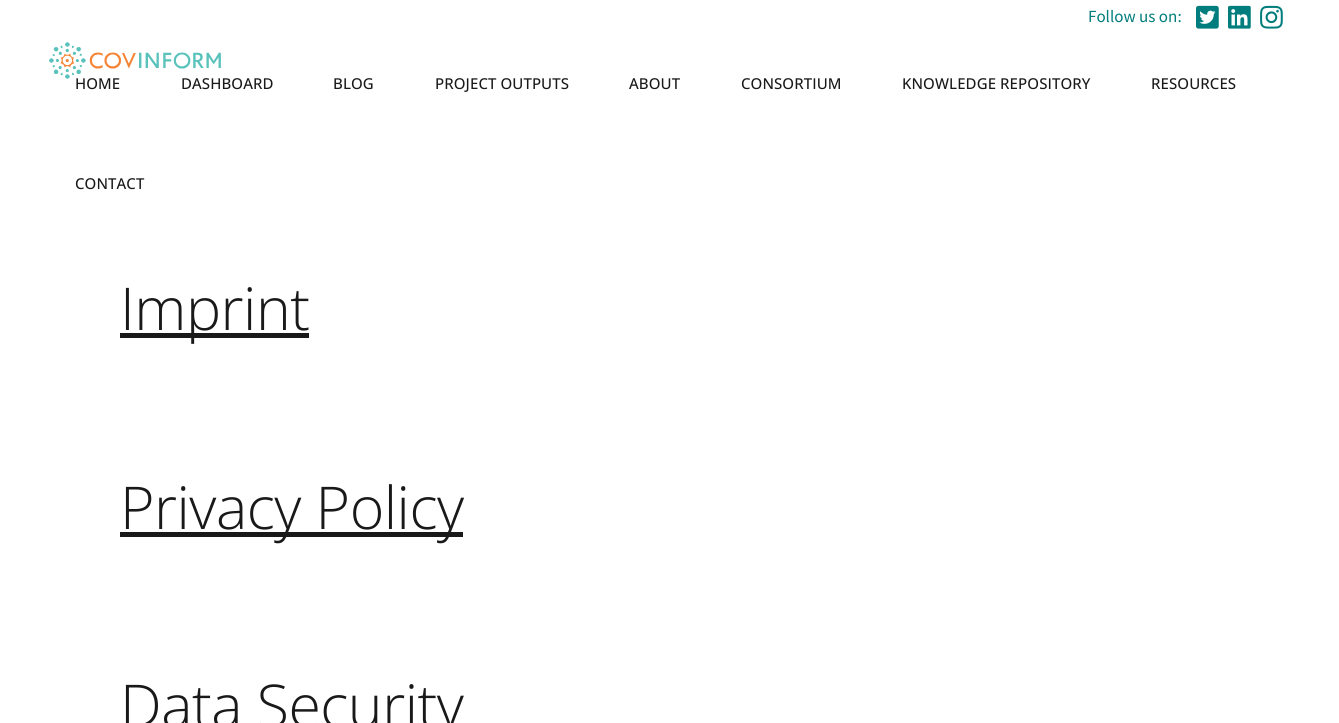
import math
import cairocffi as cairo

surface = cairo.ImageSurface(cairo.FORMAT_RGB24, 1339, 723)
ctx = cairo.Context(surface)
options = cairo.FontOptions()
options.set_hint_metrics(cairo.HINT_METRICS_OFF)
options.set_hint_style(cairo.HINT_STYLE_NONE)
ctx.set_font_options(options)
ctx.set_miter_limit(4)


def rgb(r, g, b):
    ctx.set_source_rgb(r / 255, g / 255, b / 255)


def face(family, size, italic, bold):
    ctx.select_font_face(family, cairo.FONT_SLANT_ITALIC if italic else cairo.FONT_SLANT_NORMAL, cairo.FONT_WEIGHT_BOLD if bold else cairo.FONT_WEIGHT_NORMAL)
    ctx.set_font_size(size)


def label(x, y, s):
    ctx.move_to(x, y)
    ctx.show_text(s)


def tracked(x, y, s, letter, word):
    ctx.move_to(x, y)
    for ch in s:
        ctx.show_text(ch)
        ctx.rel_move_to(letter + word * (ch == ' '), 0)


def rect(x, y, w, h):
    ctx.rectangle(x, y, w, h)
    ctx.fill()


def image(path, x, y, w, h):
    ctx.save()
    ctx.set_source_surface(cairo.ImageSurface.create_from_png(path), x, y)
    ctx.rectangle(x, y, w, h)
    ctx.fill()
    ctx.restore()


rgb(255, 255, 255)
ctx.paint()
face('Source Sans Pro', 17, 0, 0)
rgb(0, 125, 124)
label(1088, 22, 'Follow us on:')
image('image0.png', 1196, 5, 23, 24)
image('image1.png', 1228, 5, 23, 24)
image('image2.png', 1260, 5, 23, 24)
image('image3.png', 49, 42, 172, 37)
face('Open Sans Medium', 15, 0, 0)
rgb(25, 25, 25)
tracked(75, 89, 'HOME', 0.1, 0)
tracked(181, 89, 'DASHBOARD', 0.1, 0)
tracked(333, 89, 'BLOG', 0.1, 0)
tracked(435, 89, 'PROJECT OUTPUTS', 0.1, 0)
tracked(629, 89, 'ABOUT', 0.1, 0)
tracked(741, 89, 'CONSORTIUM', 0.1, 0)
tracked(902, 89, 'KNOWLEDGE REPOSITORY', 0.1, 0)
tracked(1151, 89, 'RESOURCES', 0.1, 0)
tracked(75, 189, 'CONTACT', 0.1, 0)
rect(120, 333, 189, 5)
face('Open Sans Light', 59, 0, 0)
tracked(120, 330, 'Imprint', -0.5, 0)
rect(120, 532, 343, 5)
tracked(120, 529, 'Privacy Policy', -0.5, 0)
tracked(120, 727, 'Data Security', -0.5, 0)
surface.write_to_png('render.png')
